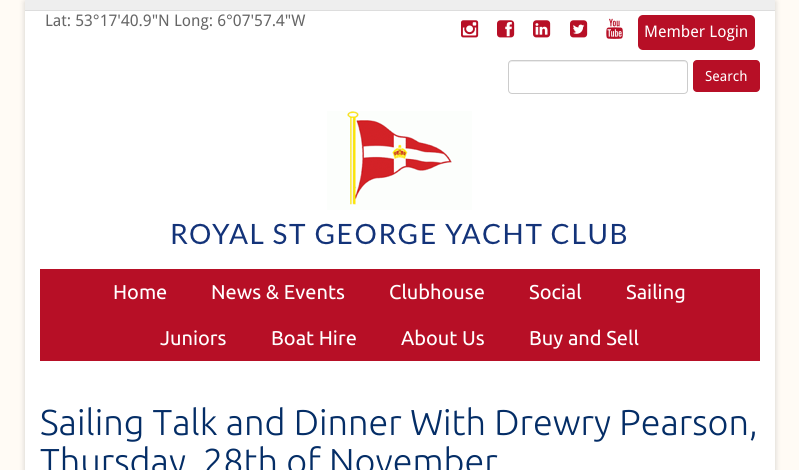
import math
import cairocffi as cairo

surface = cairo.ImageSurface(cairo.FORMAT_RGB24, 799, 470)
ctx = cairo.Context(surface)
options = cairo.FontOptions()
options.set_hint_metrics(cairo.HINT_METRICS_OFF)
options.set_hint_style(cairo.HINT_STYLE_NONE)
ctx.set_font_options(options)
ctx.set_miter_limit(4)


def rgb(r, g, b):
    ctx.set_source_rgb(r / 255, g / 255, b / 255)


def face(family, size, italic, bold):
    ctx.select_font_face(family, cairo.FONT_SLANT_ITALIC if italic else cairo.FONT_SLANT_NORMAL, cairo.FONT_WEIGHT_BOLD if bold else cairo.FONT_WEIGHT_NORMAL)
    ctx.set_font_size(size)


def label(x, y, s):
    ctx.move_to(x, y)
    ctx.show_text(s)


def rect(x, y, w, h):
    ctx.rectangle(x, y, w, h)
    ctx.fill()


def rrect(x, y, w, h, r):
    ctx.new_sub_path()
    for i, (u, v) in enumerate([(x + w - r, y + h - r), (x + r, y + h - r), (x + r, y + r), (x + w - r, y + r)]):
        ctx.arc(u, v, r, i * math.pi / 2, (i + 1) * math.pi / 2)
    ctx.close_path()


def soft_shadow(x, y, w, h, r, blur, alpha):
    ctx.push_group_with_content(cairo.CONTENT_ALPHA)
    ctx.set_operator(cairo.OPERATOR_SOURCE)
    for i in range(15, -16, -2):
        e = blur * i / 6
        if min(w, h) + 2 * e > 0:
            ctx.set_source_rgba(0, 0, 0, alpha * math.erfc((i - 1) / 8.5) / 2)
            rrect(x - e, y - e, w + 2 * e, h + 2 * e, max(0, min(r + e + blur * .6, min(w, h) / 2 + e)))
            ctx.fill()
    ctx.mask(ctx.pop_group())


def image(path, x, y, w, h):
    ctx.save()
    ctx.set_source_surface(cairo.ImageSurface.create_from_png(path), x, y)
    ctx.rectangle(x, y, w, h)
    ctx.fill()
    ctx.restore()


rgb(255, 251, 245)
ctx.paint()
rgb(100, 100, 100)
soft_shadow(25, 2, 750, 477, 0, 3, 0.3)
rgb(255, 255, 255)
rect(25, 11, 750, 459)
rgb(238, 238, 238)
rect(25, 0, 750, 10)
rgb(221, 221, 221)
rect(25, 10, 750, 1)
face('Droid Sans', 16, 0, 0)
rgb(102, 102, 102)
label(45, 26, 'Lat: 53°17\'40.9"N Long: 6°07\'57.4"W')
image('image0.png', 461, 20, 18, 18)
image('image1.png', 497, 20, 18, 18)
image('image2.png', 533, 20, 18, 18)
image('image3.png', 570, 20, 18, 18)
image('image4.png', 606, 18, 17, 21)
rgb(183, 15, 38)
rrect(638, 15, 117, 35, 5)
ctx.fill()
rgb(255, 255, 255)
label(644, 37, 'Member Login')
rgb(236, 236, 236)
ctx.new_path()
ctx.move_to(512, 62)
ctx.line_to(684, 62)
ctx.curve_to(686, 62, 687, 63, 687, 65)
ctx.line_to(687, 64)
ctx.curve_to(687, 62, 686, 61, 684, 61)
ctx.line_to(512, 61)
ctx.curve_to(510, 61, 509, 62, 509, 64)
ctx.line_to(509, 65)
ctx.curve_to(509, 63, 510, 62, 512, 62)
ctx.close_path()
ctx.fill()
rrect(508.5, 60.5, 179, 33, 3.5)
rgb(204, 204, 204)
ctx.set_line_width(1)
ctx.stroke()
rgb(183, 15, 38)
rrect(693, 60, 67, 32, 4)
ctx.fill()
face('Droid Sans', 14, 0, 0)
rgb(255, 255, 255)
label(705, 81, 'Search')
image('image5.png', 172, 111, 455, 134)
rgb(183, 15, 38)
rect(40, 269, 720, 92)
face('Ubuntu', 20, 0, 0)
rgb(255, 255, 255)
label(113, 299, 'Home')
label(211, 299, 'News & Events')
label(389, 299, 'Clubhouse')
label(529, 299, 'Social')
label(626, 299, 'Sailing')
label(160, 345, 'Juniors')
label(271, 345, 'Boat Hire')
label(401, 345, 'About Us')
label(529, 345, 'Buy and Sell')
face('Ubuntu Light', 36, 0, 0)
rgb(4, 45, 102)
label(40, 435, 'Sailing Talk and Dinner With Drewry Pearson,')
label(40, 474, 'Thursday, 28th of November')
surface.write_to_png('render.png')
